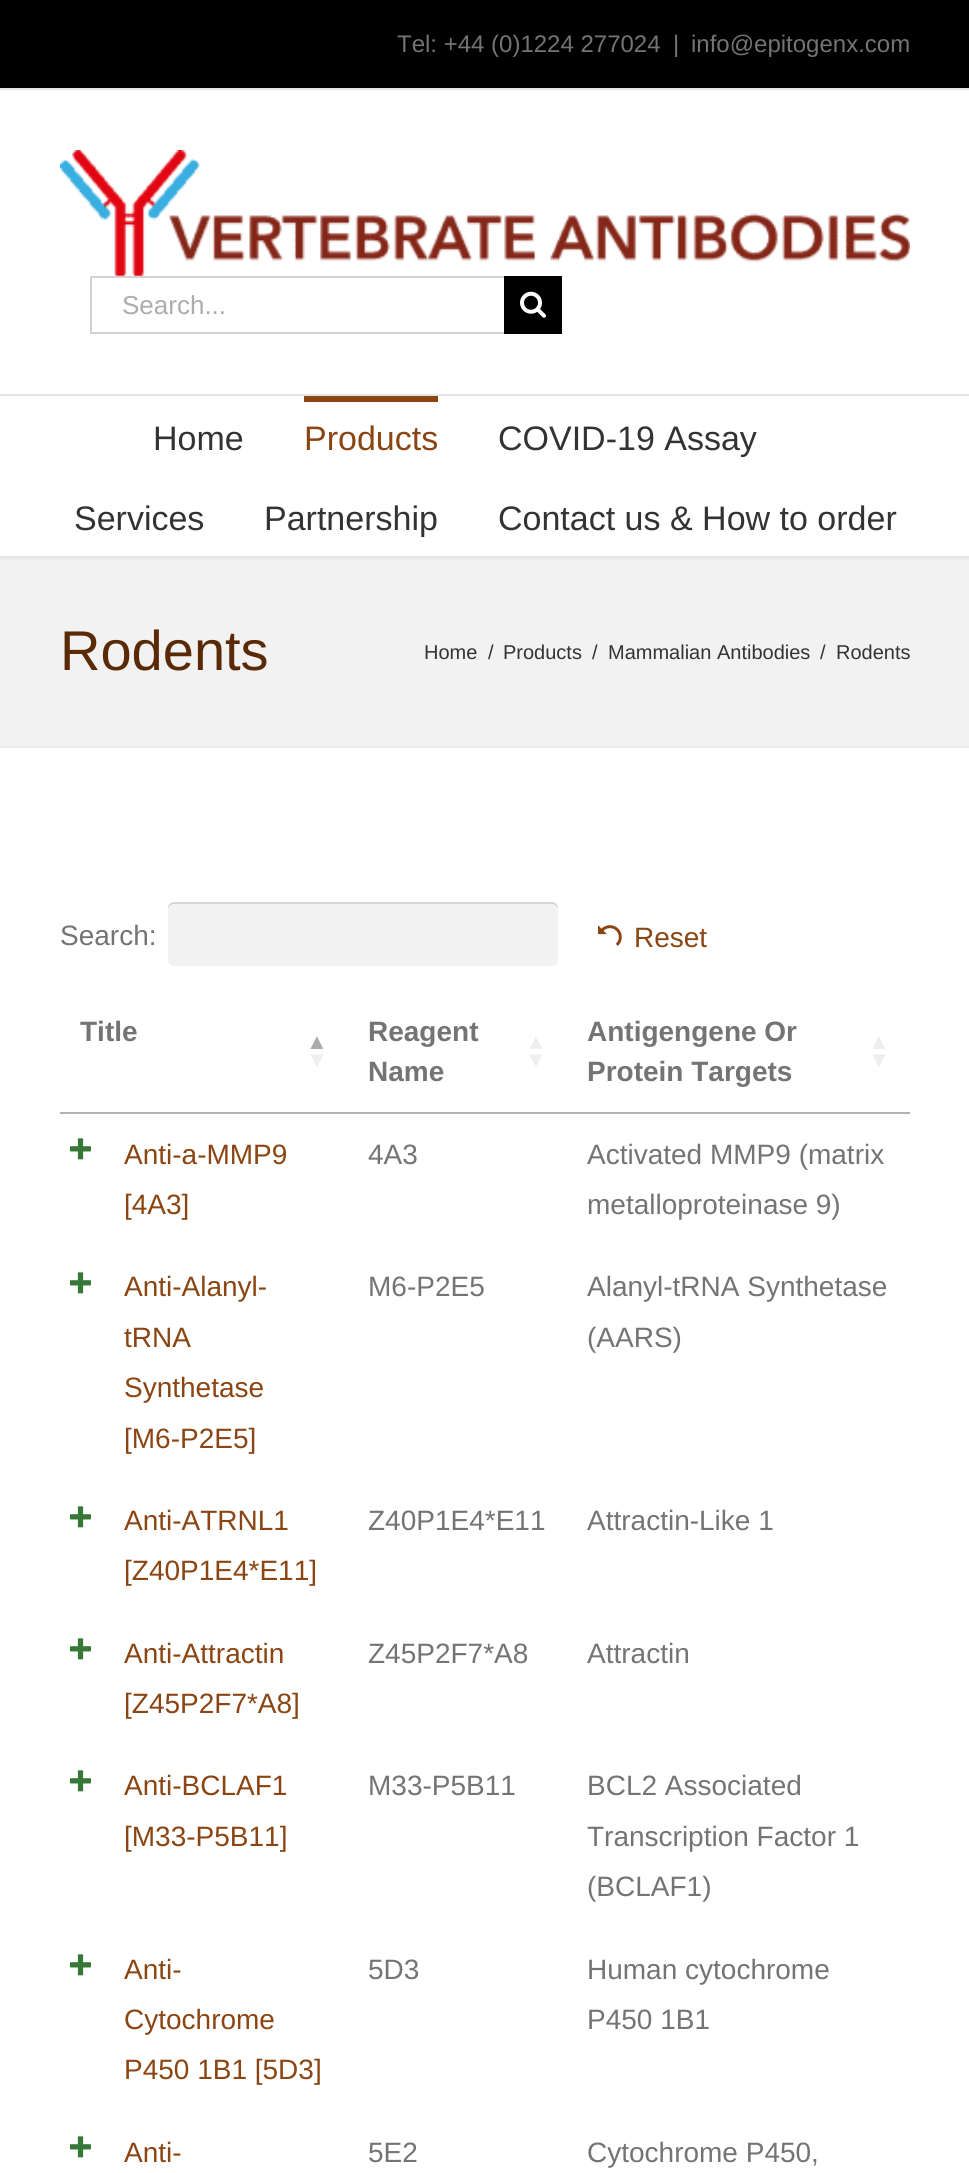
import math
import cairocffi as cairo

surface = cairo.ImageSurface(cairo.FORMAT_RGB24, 969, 2173)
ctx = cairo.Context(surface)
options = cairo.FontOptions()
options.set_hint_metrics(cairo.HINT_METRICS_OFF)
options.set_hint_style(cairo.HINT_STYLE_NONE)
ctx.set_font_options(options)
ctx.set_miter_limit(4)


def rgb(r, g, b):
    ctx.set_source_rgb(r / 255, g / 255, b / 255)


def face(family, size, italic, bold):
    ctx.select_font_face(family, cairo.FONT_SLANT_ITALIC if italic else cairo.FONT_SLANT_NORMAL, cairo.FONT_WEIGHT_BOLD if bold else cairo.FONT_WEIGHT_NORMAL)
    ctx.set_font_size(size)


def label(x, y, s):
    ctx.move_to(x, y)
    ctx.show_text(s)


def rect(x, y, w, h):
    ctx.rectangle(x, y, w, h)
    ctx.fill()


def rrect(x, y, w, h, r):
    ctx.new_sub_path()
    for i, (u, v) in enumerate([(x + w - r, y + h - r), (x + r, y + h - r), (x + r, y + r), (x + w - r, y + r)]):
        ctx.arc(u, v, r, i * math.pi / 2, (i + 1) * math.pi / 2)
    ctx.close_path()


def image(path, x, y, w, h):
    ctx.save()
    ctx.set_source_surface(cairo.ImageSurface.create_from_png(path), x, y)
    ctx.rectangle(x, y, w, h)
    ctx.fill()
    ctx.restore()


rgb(255, 255, 255)
ctx.paint()
rgb(0, 0, 0)
rect(0, 0, 969, 88)
rgb(229, 229, 229)
rect(0, 88, 969, 2)
face('Liberation Sans', 24, 0, 0)
rgb(116, 116, 116)
label(397, 52, 'Tel: +44 (0)1224 277024')
label(673, 52, '|')
label(691, 52, 'info@epitogenx.com')
rgb(229, 229, 229)
rect(0, 394, 969, 2)
image('image0.png', 60, 150, 850, 126)
rgb(210, 210, 210)
rect(90, 276, 414, 2)
rect(90, 332, 414, 2)
rect(90, 276, 2, 58)
face('Liberation Sans', 26, 0, 0)
rgb(172, 172, 172)
label(122, 314, 'Search...')
rgb(0, 0, 0)
rect(504, 276, 58, 58)
image('image1.png', 520, 291, 26, 27)
rgb(229, 229, 229)
rect(0, 556, 969, 2)
face('Liberation Sans', 34, 0, 0)
rgb(51, 51, 51)
label(153, 450, 'Home')
rgb(139, 69, 19)
rect(304, 396, 134, 6)
label(304, 450, 'Products')
rgb(51, 51, 51)
label(498, 450, 'COVID-19 Assay')
label(74, 530, 'Services')
label(264, 530, 'Partnership')
label(498, 530, 'Contact us & How to order')
rgb(242, 242, 242)
rect(0, 560, 969, 186)
rgb(237, 234, 234)
rect(0, 558, 969, 2)
rect(0, 746, 969, 2)
face('Liberation Sans', 56, 0, 0)
rgb(90, 41, 6)
label(60, 670, 'Rodents')
face('Liberation Sans', 20, 0, 0)
rgb(51, 51, 51)
label(424, 659, 'Home')
label(488, 659, '/')
label(503, 659, 'Products')
label(592, 659, '/')
label(608, 659, 'Mammalian Antibodies')
label(820, 659, '/')
label(836, 659, 'Rodents')
face('Liberation Sans', 28, 0, 0)
rgb(116, 116, 116)
label(60, 945, 'Search:')
rgb(242, 242, 242)
rrect(168, 902, 390, 64, 6)
ctx.fill()
ctx.set_source_rgba(0, 0, 0, 0.12)
ctx.new_path()
ctx.move_to(174, 904)
ctx.line_to(552, 904)
ctx.curve_to(555, 904, 558, 907, 558, 910)
ctx.curve_to(558, 906, 557, 902, 552, 902)
ctx.line_to(174, 902)
ctx.curve_to(169, 902, 168, 906, 168, 910)
ctx.curve_to(168, 907, 171, 904, 174, 904)
ctx.close_path()
ctx.fill()
image('image2.png', 598, 925, 24, 21)
rgb(139, 69, 19)
label(634, 947, 'Reset')
rgb(179, 179, 179)
rect(60, 1112, 850, 2)
face('Liberation Sans', 28, 0, 1)
rgb(116, 116, 116)
label(80, 1041, 'Title')
face('Liberation Sans', 22, 0, 1)
rgb(172, 172, 172)
label(306, 1049, '▲')
rgb(238, 238, 238)
label(306, 1067, '▼')
face('Liberation Sans', 28, 0, 1)
rgb(116, 116, 116)
label(368, 1041, 'Reagent')
face('Liberation Sans', 22, 0, 1)
rgb(238, 238, 238)
label(525, 1049, '▲')
face('Liberation Sans', 28, 0, 1)
rgb(116, 116, 116)
label(368, 1081, 'Name')
face('Liberation Sans', 22, 0, 1)
rgb(238, 238, 238)
label(525, 1067, '▼')
face('Liberation Sans', 28, 0, 1)
rgb(116, 116, 116)
label(587, 1041, 'Antigengene Or')
face('Liberation Sans', 22, 0, 1)
rgb(238, 238, 238)
label(868, 1049, '▲')
face('Liberation Sans', 28, 0, 1)
rgb(116, 116, 116)
label(587, 1081, 'Protein Targets')
face('Liberation Sans', 22, 0, 1)
rgb(238, 238, 238)
label(868, 1067, '▼')
image('image3.png', 70, 1138, 21, 22)
face('Liberation Sans', 28, 0, 0)
rgb(139, 69, 19)
label(124, 1164, 'Anti-a-MMP9')
label(124, 1214, '[4A3]')
rgb(116, 116, 116)
label(368, 1164, '4A3')
label(587, 1164, 'Activated MMP9 (matrix')
label(587, 1214, 'metalloproteinase 9)')
image('image3.png', 70, 1272, 21, 22)
rgb(139, 69, 19)
label(124, 1296, 'Anti-Alanyl-')
label(124, 1347, 'tRNA')
label(124, 1397, 'Synthetase')
label(124, 1448, '[M6-P2E5]')
rgb(116, 116, 116)
label(368, 1296, 'M6-P2E5')
label(587, 1296, 'Alanyl-tRNA Synthetase')
label(587, 1347, '(AARS)')
image('image3.png', 70, 1506, 21, 22)
rgb(139, 69, 19)
label(124, 1530, 'Anti-ATRNL1')
label(124, 1580, '[Z40P1E4*E11]')
rgb(116, 116, 116)
label(368, 1530, 'Z40P1E4*E11')
label(587, 1530, 'Attractin-Like 1')
image('image3.png', 70, 1638, 21, 22)
rgb(139, 69, 19)
label(124, 1663, 'Anti-Attractin')
label(124, 1713, '[Z45P2F7*A8]')
rgb(116, 116, 116)
label(368, 1663, 'Z45P2F7*A8')
label(587, 1663, 'Attractin')
image('image3.png', 70, 1770, 21, 22)
rgb(139, 69, 19)
label(124, 1795, 'Anti-BCLAF1')
label(124, 1846, '[M33-P5B11]')
rgb(116, 116, 116)
label(368, 1795, 'M33-P5B11')
label(587, 1795, 'BCL2 Associated')
label(587, 1846, 'Transcription Factor 1')
label(587, 1896, '(BCLAF1)')
image('image3.png', 70, 1954, 21, 22)
rgb(139, 69, 19)
label(124, 1979, 'Anti-')
label(124, 2029, 'Cytochrome')
label(124, 2079, 'P450 1B1 [5D3]')
rgb(116, 116, 116)
label(368, 1979, '5D3')
label(587, 1979, 'Human cytochrome')
label(587, 2029, 'P450 1B1')
image('image3.png', 70, 2136, 21, 22)
rgb(139, 69, 19)
label(124, 2162, 'Anti-')
rgb(116, 116, 116)
label(368, 2162, '5E2')
label(587, 2162, 'Cytochrome P450,')
surface.write_to_png('render.png')
